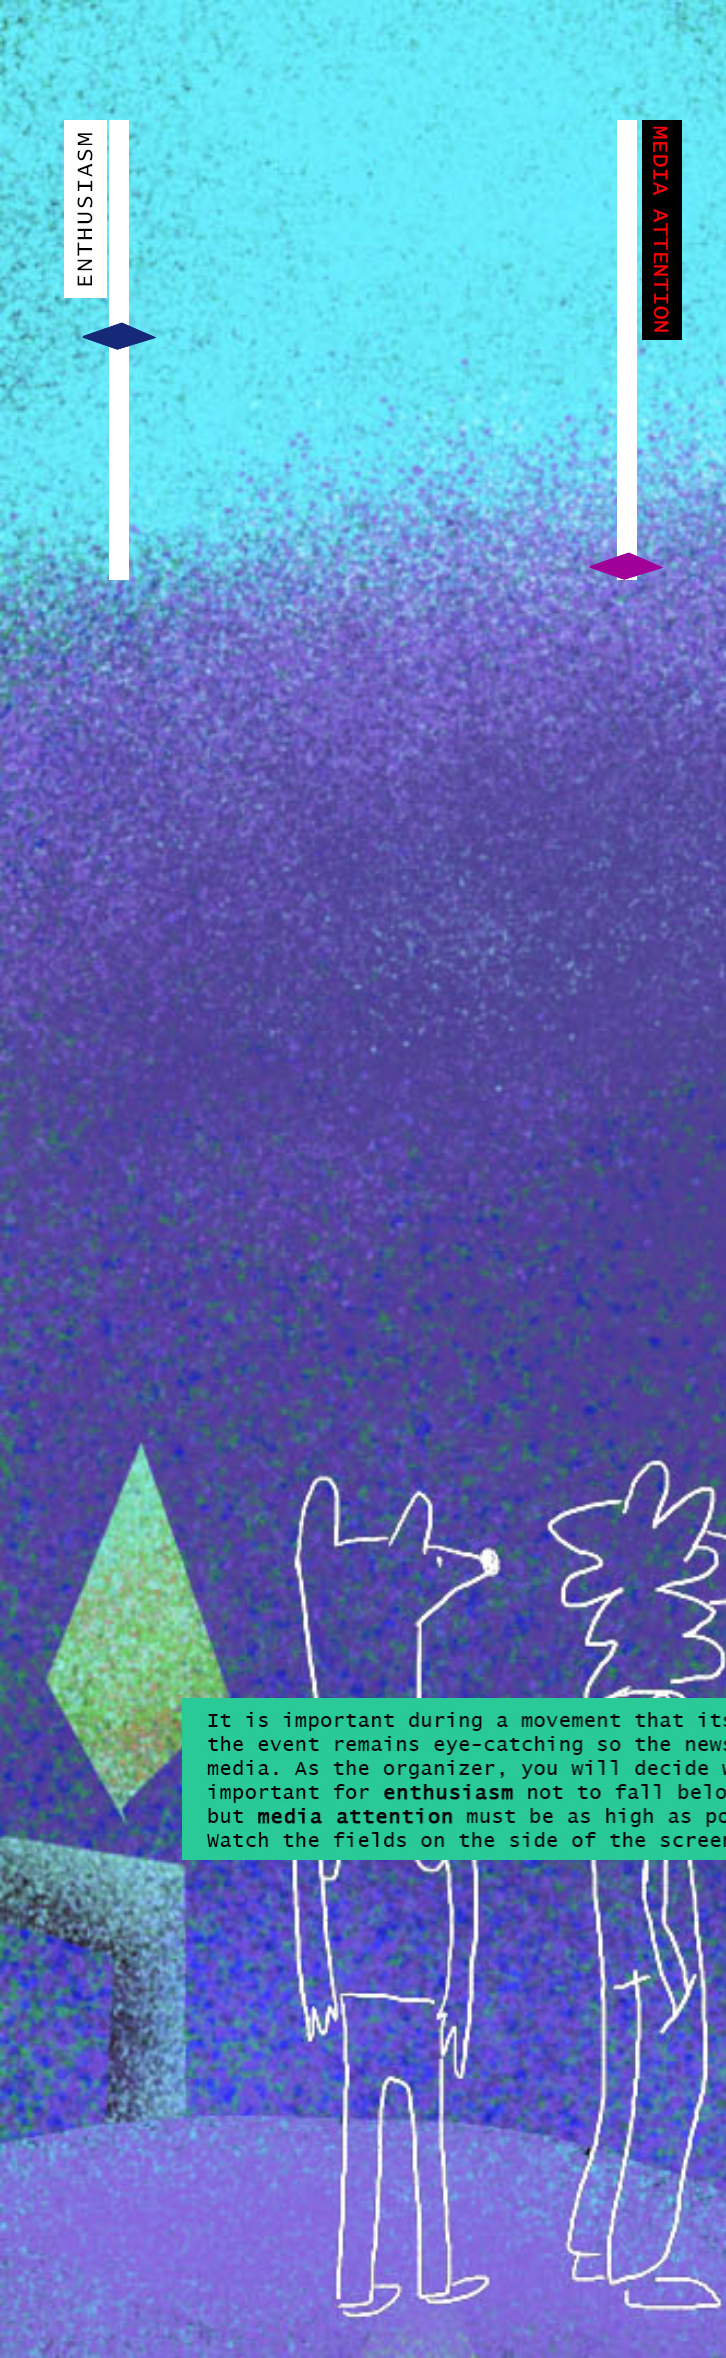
import math
import cairocffi as cairo

surface = cairo.ImageSurface(cairo.FORMAT_RGB24, 726, 2358)
ctx = cairo.Context(surface)
options = cairo.FontOptions()
options.set_hint_metrics(cairo.HINT_METRICS_OFF)
options.set_hint_style(cairo.HINT_STYLE_NONE)
ctx.set_font_options(options)
ctx.set_miter_limit(4)


def rgb(r, g, b):
    ctx.set_source_rgb(r / 255, g / 255, b / 255)


def rect(x, y, w, h):
    ctx.rectangle(x, y, w, h)
    ctx.fill()


def image(path, x, y, w, h):
    ctx.save()
    ctx.set_source_surface(cairo.ImageSurface.create_from_png(path), x, y)
    ctx.rectangle(x, y, w, h)
    ctx.fill()
    ctx.restore()


rgb(255, 255, 255)
ctx.paint()
image('image0.png', 0, 0, 726, 2358)
image('image1.png', 64, 120, 43, 178)
rgb(255, 255, 255)
rect(109, 120, 20, 460)
image('image2.png', 82, 322, 75, 28)
rect(617, 120, 20, 460)
image('image3.png', 589, 552, 75, 28)
image('image4.png', 642, 120, 40, 220)
image('image5.png', 182, 1698, 544, 162)
surface.write_to_png('render.png')
